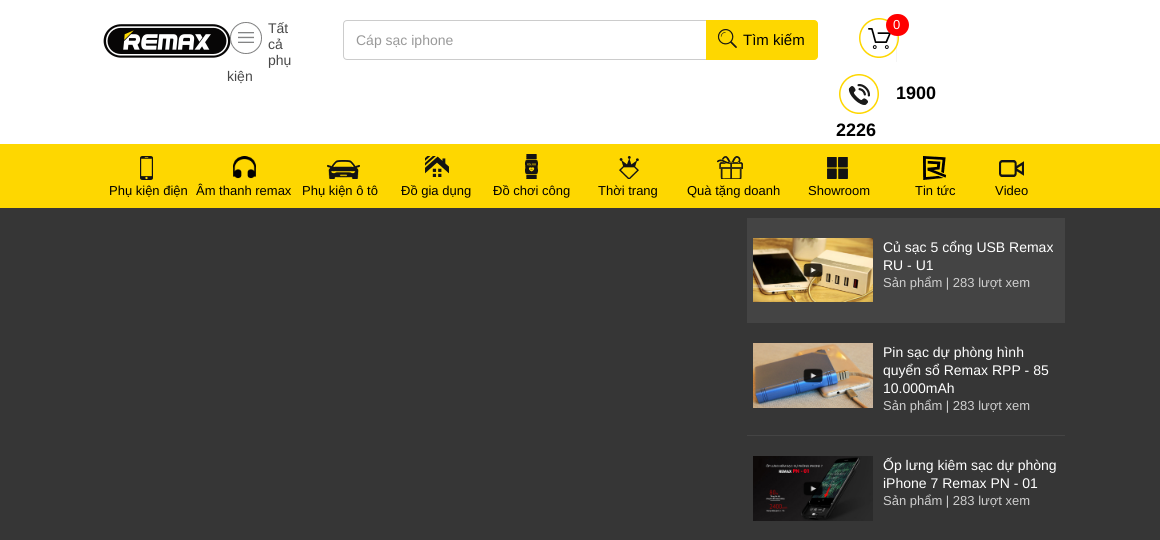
import math
import cairocffi as cairo

surface = cairo.ImageSurface(cairo.FORMAT_RGB24, 1160, 540)
ctx = cairo.Context(surface)
options = cairo.FontOptions()
options.set_hint_metrics(cairo.HINT_METRICS_OFF)
options.set_hint_style(cairo.HINT_STYLE_NONE)
ctx.set_font_options(options)
ctx.set_miter_limit(4)


def rgb(r, g, b):
    ctx.set_source_rgb(r / 255, g / 255, b / 255)


def face(family, size, italic, bold):
    ctx.select_font_face(family, cairo.FONT_SLANT_ITALIC if italic else cairo.FONT_SLANT_NORMAL, cairo.FONT_WEIGHT_BOLD if bold else cairo.FONT_WEIGHT_NORMAL)
    ctx.set_font_size(size)


def label(x, y, s):
    ctx.move_to(x, y)
    ctx.show_text(s)


def rect(x, y, w, h):
    ctx.rectangle(x, y, w, h)
    ctx.fill()


def rrect(x, y, w, h, r):
    ctx.new_sub_path()
    for i, (u, v) in enumerate([(x + w - r, y + h - r), (x + r, y + h - r), (x + r, y + r), (x + w - r, y + r)]):
        ctx.arc(u, v, r, i * math.pi / 2, (i + 1) * math.pi / 2)
    ctx.close_path()


def image(path, x, y, w, h):
    ctx.save()
    ctx.set_source_surface(cairo.ImageSurface.create_from_png(path), x, y)
    ctx.rectangle(x, y, w, h)
    ctx.fill()
    ctx.restore()


rgb(255, 255, 255)
ctx.paint()
image('image0.png', 103, 24, 128, 34)
face('Liberation Sans', 14, 0, 0)
rgb(72, 72, 72)
label(268, 33, 'Tất')
label(268, 49, 'cả')
label(268, 65, 'phụ')
label(227, 81, 'kiện')
image('image1.png', 230, 22, 32, 32)
ctx.new_path()
ctx.move_to(347, 20.5)
ctx.line_to(706.5, 20.5)
ctx.line_to(706.5, 59.5)
ctx.line_to(347, 59.5)
ctx.curve_to(345, 59.5, 343.5, 58, 343.5, 56)
ctx.line_to(343.5, 24)
ctx.curve_to(343.5, 22, 345, 20.5, 347, 20.5)
ctx.close_path()
rgb(204, 204, 204)
ctx.set_line_width(1)
ctx.stroke()
rgb(153, 153, 153)
label(356, 45, 'Cáp sạc iphone')
rgb(254, 215, 0)
ctx.new_path()
ctx.move_to(706.5, 20.5)
ctx.line_to(814, 20.5)
ctx.curve_to(816, 20.5, 817.5, 22, 817.5, 24)
ctx.line_to(817.5, 56)
ctx.curve_to(817.5, 58, 816, 59.5, 814, 59.5)
ctx.line_to(706.5, 59.5)
ctx.close_path()
ctx.fill_preserve()
ctx.stroke()
image('image2.png', 717, 29, 20, 19)
face('Liberation Sans', 15, 0, 0)
rgb(0, 0, 0)
label(743, 45, 'Tìm kiếm')
rgb(245, 245, 245)
rect(896, 35, 1, 27)
image('image3.png', 859, 18, 40, 40)
rgb(255, 0, 0)
rrect(886, 14, 23, 22, 11)
ctx.fill()
face('Liberation Sans', 13, 0, 0)
rgb(255, 255, 255)
label(893, 29, '0')
image('image4.png', 839, 74, 40, 40)
face('Liberation Sans', 18, 0, 1)
rgb(0, 0, 0)
label(896, 99, '1900')
label(836, 136, '2226')
rgb(254, 215, 0)
rect(0, 144, 1160, 64)
image('image5.png', 140, 156, 13, 24)
face('Liberation Sans', 13, 0, 0)
rgb(0, 0, 0)
label(109, 195, 'Phụ kiện điện')
image('image6.png', 233, 156, 23, 23)
label(196, 195, 'Âm thanh remax')
image('image7.png', 327, 160, 33, 19)
label(302, 195, 'Phụ kiện ô tô')
image('image8.png', 425, 156, 24, 21)
label(401, 195, 'Đồ gia dụng')
image('image9.png', 525, 154, 13, 25)
label(493, 195, 'Đồ chơi công')
image('image10.png', 619, 156, 20, 23)
label(598, 195, 'Thời trang')
image('image11.png', 717, 156, 26, 23)
label(687, 195, 'Quà tặng doanh')
image('image12.png', 827, 157, 21, 22)
label(808, 195, 'Showroom')
image('image13.png', 923, 156, 23, 24)
label(915, 195, 'Tin tức')
image('image14.png', 999, 160, 25, 17)
label(995, 195, 'Video')
rgb(54, 54, 54)
rect(0, 208, 1160, 332)
rgb(68, 68, 68)
rect(747, 218, 318, 105)
image('image15.png', 753, 238, 120, 64)
face('Liberation Sans', 14, 0, 0)
rgb(255, 255, 255)
label(883, 252, 'Củ sạc 5 cổng USB Remax')
label(883, 270, 'RU - U1')
face('Liberation Sans', 13, 0, 0)
rgb(207, 207, 207)
label(883, 287, 'Sản phẩm | 283 lượt xem')
rgb(68, 68, 68)
rect(747, 435, 318, 1)
image('image16.png', 753, 343, 120, 65)
face('Liberation Sans', 14, 0, 0)
rgb(255, 255, 255)
label(883, 357, 'Pin sạc dự phòng hình')
label(883, 375, 'quyển sổ Remax RPP - 85')
label(883, 393, '10.000mAh')
face('Liberation Sans', 13, 0, 0)
rgb(207, 207, 207)
label(883, 410, 'Sản phẩm | 283 lượt xem')
image('image17.png', 753, 456, 120, 65)
face('Liberation Sans', 14, 0, 0)
rgb(255, 255, 255)
label(883, 470, 'Ốp lưng kiêm sạc dự phòng')
label(883, 488, 'iPhone 7 Remax PN - 01')
face('Liberation Sans', 13, 0, 0)
rgb(207, 207, 207)
label(883, 505, 'Sản phẩm | 283 lượt xem')
surface.write_to_png('render.png')
